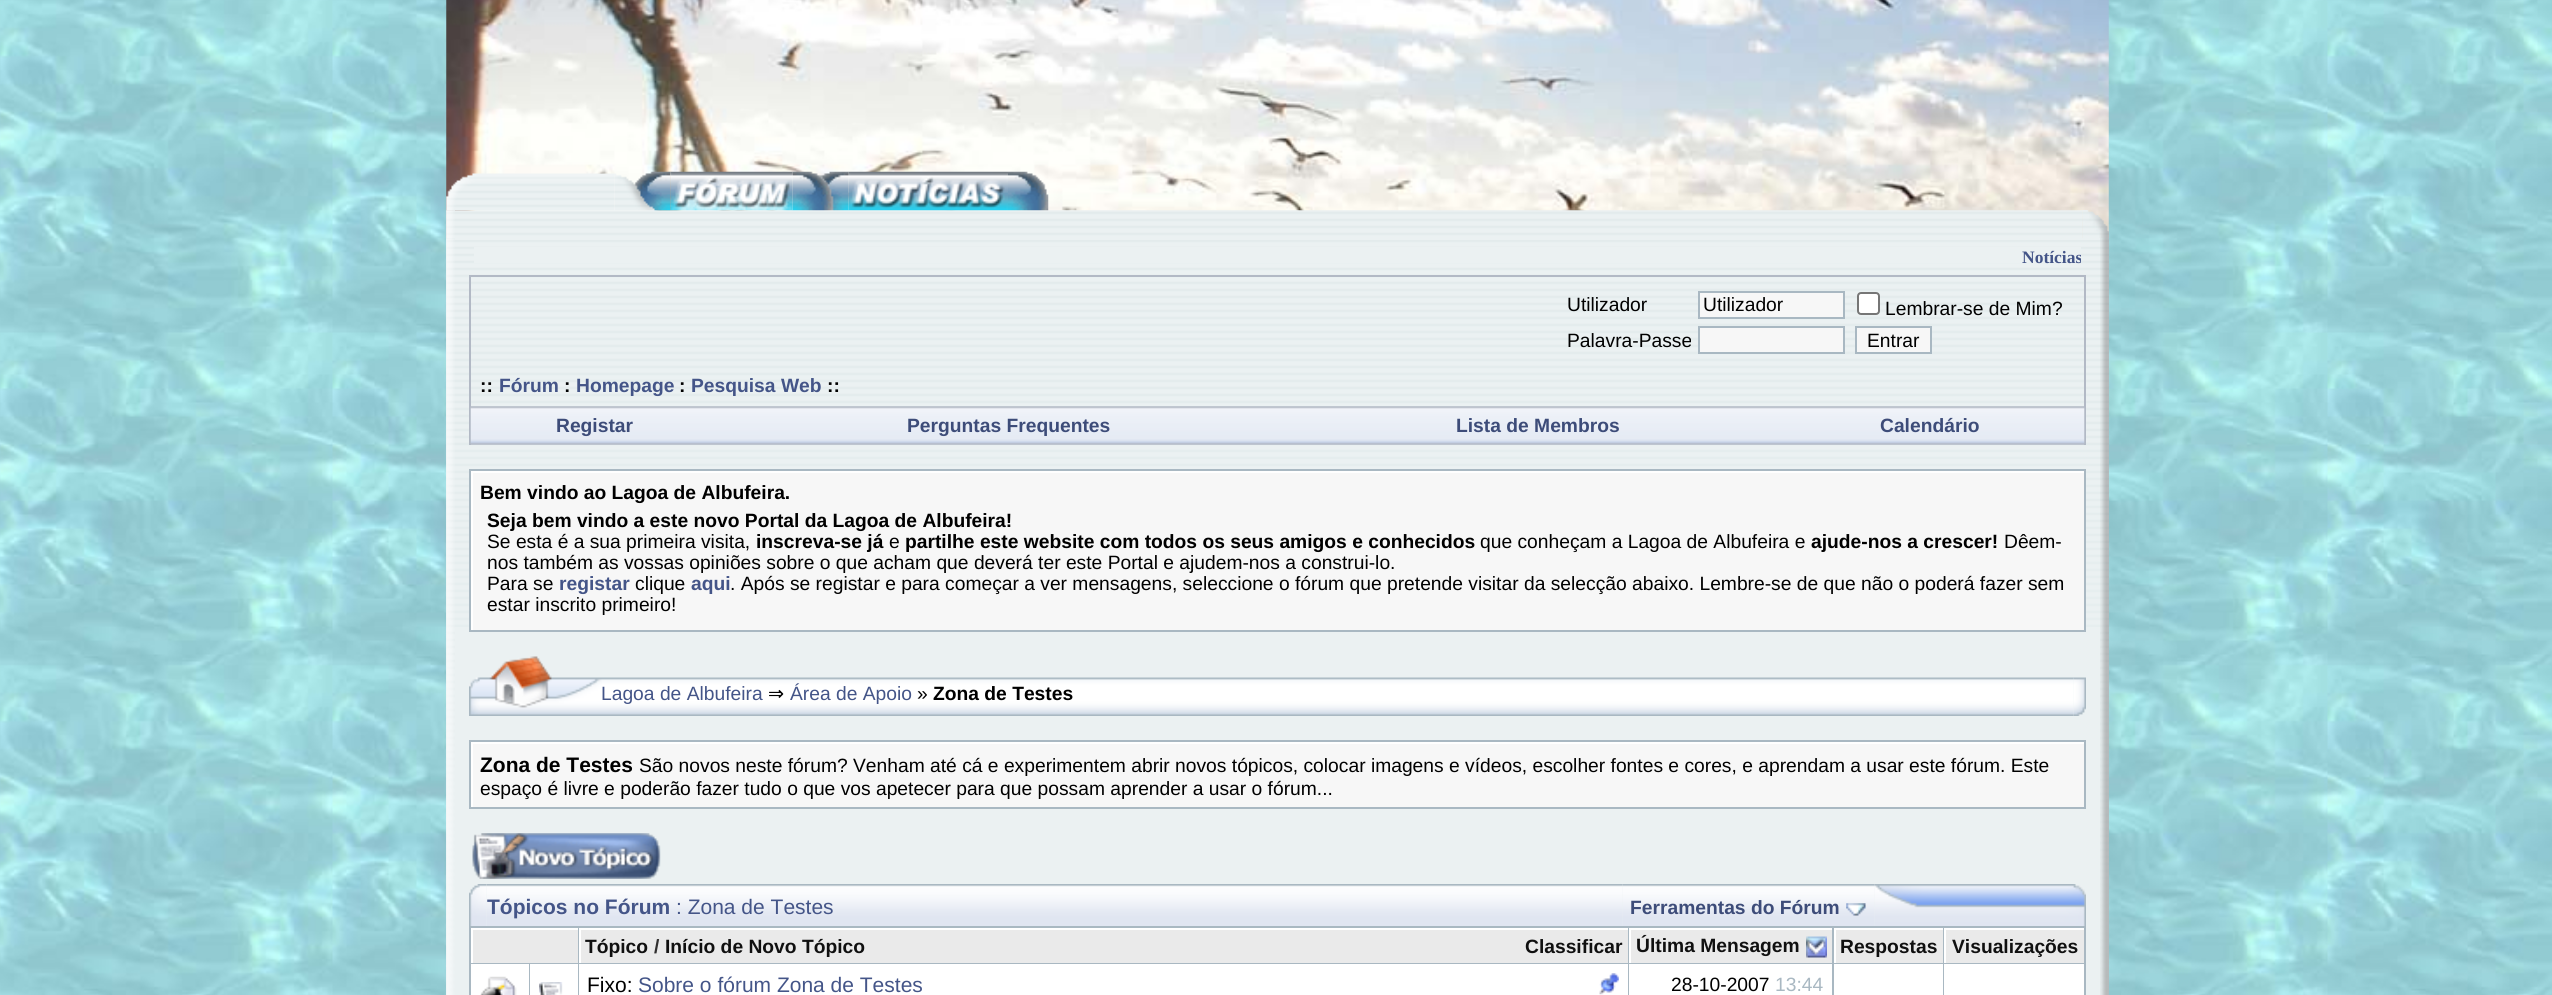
import math
import cairocffi as cairo

surface = cairo.ImageSurface(cairo.FORMAT_RGB24, 2552, 995)
ctx = cairo.Context(surface)
options = cairo.FontOptions()
options.set_hint_metrics(cairo.HINT_METRICS_OFF)
options.set_hint_style(cairo.HINT_STYLE_NONE)
ctx.set_font_options(options)
ctx.set_miter_limit(4)


def rgb(r, g, b):
    ctx.set_source_rgb(r / 255, g / 255, b / 255)


def face(family, size, italic, bold):
    ctx.select_font_face(family, cairo.FONT_SLANT_ITALIC if italic else cairo.FONT_SLANT_NORMAL, cairo.FONT_WEIGHT_BOLD if bold else cairo.FONT_WEIGHT_NORMAL)
    ctx.set_font_size(size)


def label(x, y, s):
    ctx.move_to(x, y)
    ctx.show_text(s)


def rect(x, y, w, h):
    ctx.rectangle(x, y, w, h)
    ctx.fill()


def rrect(x, y, w, h, r):
    ctx.new_sub_path()
    for i, (u, v) in enumerate([(x + w - r, y + h - r), (x + r, y + h - r), (x + r, y + r), (x + w - r, y + r)]):
        ctx.arc(u, v, r, i * math.pi / 2, (i + 1) * math.pi / 2)
    ctx.close_path()


def image(path, x, y, w, h):
    ctx.save()
    ctx.set_source_surface(cairo.ImageSurface.create_from_png(path), x, y)
    ctx.rectangle(x, y, w, h)
    ctx.fill()
    ctx.restore()


rgb(255, 255, 255)
ctx.paint()
image('image0.png', 0, 0, 2552, 995)
image('image1.png', 446, 0, 1663, 239)
image('image8.png', 446, 210, 1637, 29)
image('image2.png', 446, 173, 169, 38)
image('image3.png', 614, 171, 57, 40)
image('image4.png', 670, 171, 123, 40)
image('image5.png', 792, 171, 57, 40)
image('image6.png', 848, 171, 160, 40)
image('image7.png', 1008, 171, 41, 40)
image('image12.png', 446, 238, 9, 757)
image('image9.png', 446, 210, 9, 29)
image('image10.png', 2082, 210, 27, 29)
image('image11.png', 2082, 210, 27, 28)
image('image13.png', 446, 238, 9, 757)
rgb(235, 241, 242)
rect(455, 238, 1645, 757)
image('image14.png', 455, 240, 1645, 387)
rect(474, 247, 1607, 16)
ctx.save()
ctx.rectangle(474, 247, 1607, 19)
ctx.clip()
face('Liberation Serif', 17.5, 0, 1)
rgb(68, 85, 136)
label(2022, 263, 'Notícias')
ctx.restore()
rgb(178, 185, 197)
rect(469, 275, 1617, 2)
rect(2084, 275, 2, 170)
rect(469, 275, 2, 170)
face('Liberation Sans', 19.25, 0, 0)
rgb(0, 0, 0)
label(1567, 311, 'Utilizador')
rgb(247, 247, 247)
ctx.rectangle(1699, 292, 145, 26)
ctx.fill_preserve()
rgb(169, 184, 194)
ctx.stroke()
rgb(0, 0, 0)
label(1703, 311, 'Utilizador')
rgb(255, 255, 255)
rrect(1858, 293, 21, 21, 3)
ctx.fill_preserve()
rgb(118, 118, 118)
ctx.stroke()
rgb(0, 0, 0)
label(1885, 315, 'Lembrar-se de Mim?')
label(1567, 347, 'Palavra-Passe')
rgb(247, 247, 247)
ctx.rectangle(1699, 327, 145, 26)
ctx.fill_preserve()
rgb(169, 184, 194)
ctx.stroke()
rgb(247, 247, 247)
ctx.rectangle(1856, 327, 75, 26)
ctx.fill_preserve()
rgb(169, 184, 194)
ctx.stroke()
rgb(0, 0, 0)
label(1867, 347, 'Entrar')
face('Liberation Sans', 19.25, 0, 1)
label(480, 392, '::')
rgb(68, 85, 136)
label(499, 392, 'Fórum')
rgb(0, 0, 0)
label(564, 392, ':')
rgb(68, 85, 136)
label(576, 392, 'Homepage')
rgb(0, 0, 0)
label(679, 392, ':')
rgb(68, 85, 136)
label(691, 392, 'Pesquisa Web')
rgb(0, 0, 0)
label(827, 392, '::')
image('image15.png', 470, 406, 1615, 39)
rgb(61, 76, 121)
label(556, 432, 'Registar')
label(907, 432, 'Perguntas Frequentes')
label(1456, 432, 'Lista de Membros')
label(1880, 432, 'Calendário')
rgb(169, 184, 194)
rect(469, 469, 1617, 163)
rgb(247, 247, 247)
rect(473, 473, 1611, 157)
rgb(255, 255, 255)
rect(471, 471, 1613, 2)
rect(471, 471, 2, 159)
rgb(0, 0, 0)
label(480, 499, 'Bem vindo ao Lagoa de Albufeira.')
label(487, 527, 'Seja bem vindo a este novo Portal da Lagoa de Albufeira!')
face('Liberation Sans', 19.25, 0, 0)
label(487, 548, 'Se esta é a sua primeira visita,')
face('Liberation Sans', 19.25, 0, 1)
label(756, 548, 'inscreva-se já')
face('Liberation Sans', 19.25, 0, 0)
label(889, 548, 'e')
face('Liberation Sans', 19.25, 0, 1)
label(905, 548, 'partilhe este website com todos os seus amigos e conhecidos')
face('Liberation Sans', 19.25, 0, 0)
label(1480, 548, 'que conheçam a Lagoa de Albufeira e')
face('Liberation Sans', 19.25, 0, 1)
label(1811, 548, 'ajude-nos a crescer!')
face('Liberation Sans', 19.25, 0, 0)
label(2004, 548, 'Dêem-')
label(487, 569, 'nos também as vossas opiniões sobre o que acham que deverá ter este Portal e ajudem-nos a construi-lo.')
label(487, 590, 'Para se')
face('Liberation Sans', 19.25, 0, 1)
rgb(68, 85, 136)
label(559, 590, 'registar')
face('Liberation Sans', 19.25, 0, 0)
rgb(0, 0, 0)
label(635, 590, 'clique')
face('Liberation Sans', 19.25, 0, 1)
rgb(68, 85, 136)
label(691, 590, 'aqui')
face('Liberation Sans', 19.25, 0, 0)
rgb(0, 0, 0)
label(730, 590, '. Após se registar e para começar a ver mensagens, seleccione o fórum que pretende visitar da selecção abaixo. Lembre-se de que não o poderá fazer sem')
label(487, 611, 'estar inscrito primeiro!')
image('image16.png', 469, 656, 133, 60)
image('image17.png', 602, 677, 1472, 39)
rgb(68, 85, 136)
label(601, 700, 'Lagoa de Albufeira')
face('DejaVu Sans', 19.25, 0, 0)
rgb(0, 0, 0)
label(768, 700, '⇒')
face('Liberation Sans', 19.25, 0, 0)
rgb(68, 85, 136)
label(790, 700, 'Área de Apoio')
rgb(0, 0, 0)
label(917, 700, '»')
face('Liberation Sans', 19.25, 0, 1)
label(933, 700, 'Zona de Testes')
image('image18.png', 2073, 677, 13, 39)
rgb(169, 184, 194)
rect(469, 740, 1617, 69)
rgb(247, 247, 247)
rect(473, 744, 1611, 63)
rgb(255, 255, 255)
rect(471, 742, 1613, 2)
rect(471, 742, 2, 65)
face('Liberation Sans', 21, 0, 1)
rgb(0, 0, 0)
label(480, 772, 'Zona de Testes')
face('Liberation Sans', 19.25, 0, 0)
label(639, 772, 'São novos neste fórum? Venham até cá e experimentem abrir novos tópicos, colocar imagens e vídeos, escolher fontes e cores, e aprendam a usar este fórum. Este')
label(480, 795, 'espaço é livre e poderão fazer tudo o que vos apetecer para que possam aprender a usar o fórum...')
image('image19.png', 472, 833, 189, 46)
image('image21.png', 486, 884, 1137, 42)
image('image20.png', 469, 884, 18, 42)
face('Liberation Sans', 21, 0, 1)
rgb(68, 85, 136)
label(487, 914, 'Tópicos no Fórum')
face('Liberation Sans', 21, 0, 0)
label(676, 914, ': Zona de Testes')
image('image22.png', 1622, 884, 253, 42)
face('Liberation Sans', 19.25, 0, 1)
rgb(61, 76, 121)
label(1630, 914, 'Ferramentas do Fórum')
image('image23.png', 1846, 903, 20, 13)
image('image24.png', 1874, 884, 212, 42)
rgb(169, 184, 194)
rect(469, 926, 1617, 69)
rgb(234, 234, 234)
rect(473, 930, 105, 33)
rgb(255, 255, 255)
rect(471, 928, 107, 2)
rect(471, 928, 2, 35)
rgb(234, 234, 234)
rect(581, 930, 1047, 33)
rgb(255, 255, 255)
rect(579, 928, 1049, 2)
rect(579, 928, 2, 35)
rgb(16, 16, 16)
label(585, 953, 'Tópico')
rgb(48, 47, 47)
label(654, 953, '/')
rgb(16, 16, 16)
label(665, 953, 'Início de Novo Tópico')
label(1525, 953, 'Classificar')
rgb(234, 234, 234)
rect(1631, 930, 201, 33)
rgb(255, 255, 255)
rect(1629, 928, 203, 2)
rect(1629, 928, 2, 35)
rgb(16, 16, 16)
label(1636, 952, 'Última Mensagem')
image('image25.png', 1806, 936, 21, 22)
rgb(234, 234, 234)
rect(1836, 930, 107, 33)
rgb(255, 255, 255)
rect(1834, 928, 109, 2)
rect(1834, 928, 2, 35)
rgb(16, 16, 16)
label(1840, 953, 'Respostas')
rgb(234, 234, 234)
rect(1946, 930, 138, 33)
rgb(255, 255, 255)
rect(1944, 928, 140, 2)
rect(1944, 928, 2, 35)
rgb(16, 16, 16)
label(1952, 953, 'Visualizações')
rgb(255, 255, 255)
rect(471, 964, 58, 31)
image('image26.png', 480, 976, 37, 19)
rect(530, 964, 48, 31)
image('image27.png', 539, 982, 24, 13)
rect(579, 964, 1049, 31)
face('Liberation Sans', 21, 0, 0)
rgb(0, 0, 0)
label(587, 992, 'Fixo:')
rgb(68, 85, 136)
label(638, 992, 'Sobre o fórum Zona de Testes')
image('image28.png', 1599, 973, 20, 22)
rgb(255, 255, 255)
rect(1629, 964, 203, 31)
face('Liberation Sans', 19.25, 0, 0)
rgb(0, 0, 0)
label(1671, 991, '28-10-2007')
rgb(169, 184, 194)
label(1775, 991, '13:44')
rgb(255, 255, 255)
rect(1834, 964, 109, 31)
rect(1944, 964, 140, 31)
image('image29.png', 2100, 238, 9, 757)
image('image30.png', 2100, 238, 9, 757)
surface.write_to_png('render.png')
